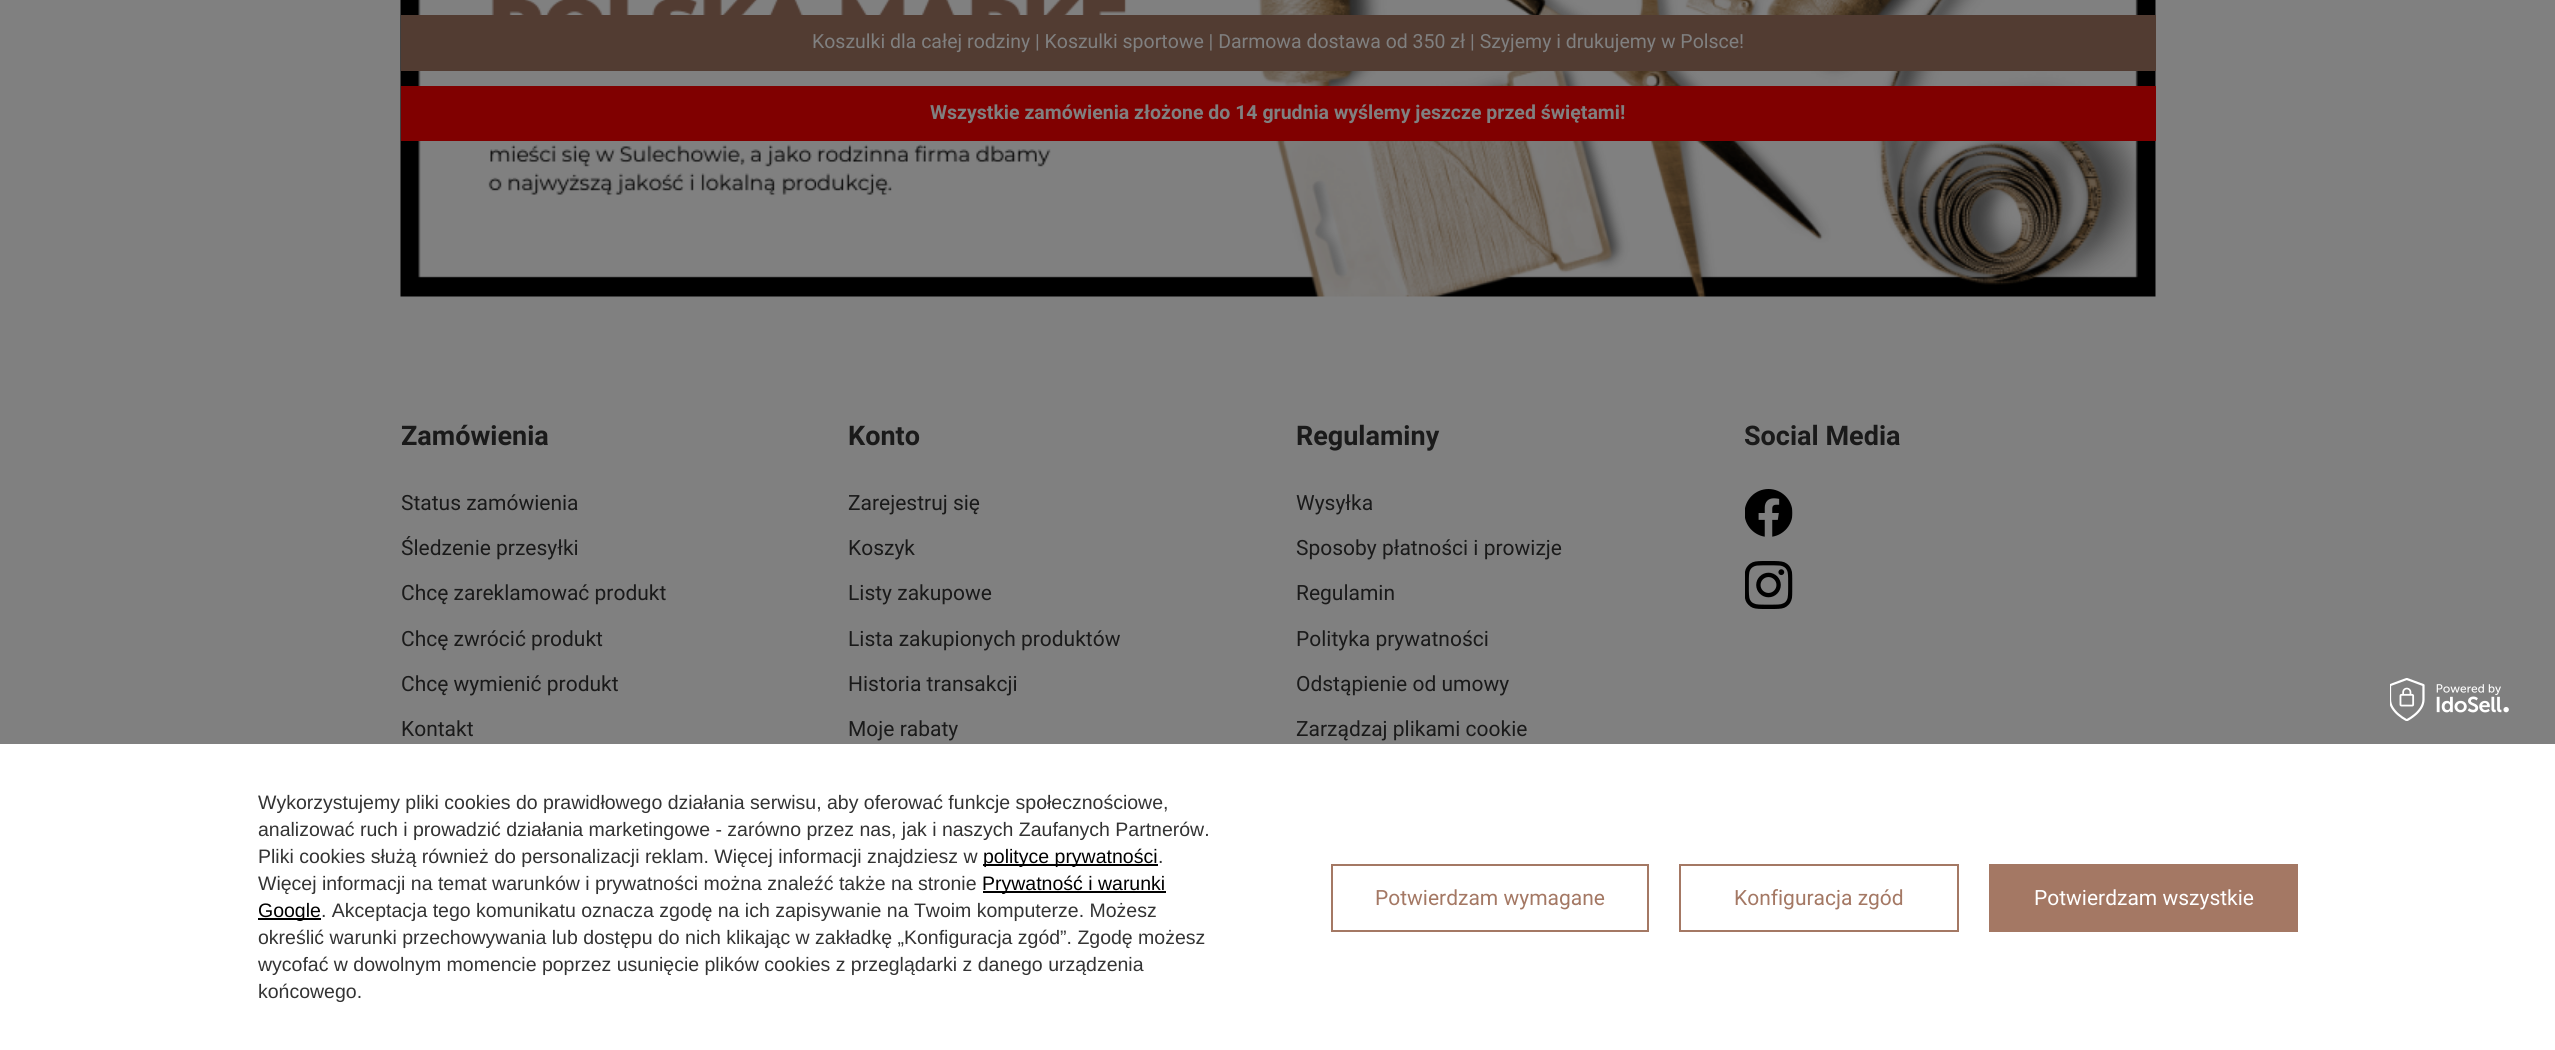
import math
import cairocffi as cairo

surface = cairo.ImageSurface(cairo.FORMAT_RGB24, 2555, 1050)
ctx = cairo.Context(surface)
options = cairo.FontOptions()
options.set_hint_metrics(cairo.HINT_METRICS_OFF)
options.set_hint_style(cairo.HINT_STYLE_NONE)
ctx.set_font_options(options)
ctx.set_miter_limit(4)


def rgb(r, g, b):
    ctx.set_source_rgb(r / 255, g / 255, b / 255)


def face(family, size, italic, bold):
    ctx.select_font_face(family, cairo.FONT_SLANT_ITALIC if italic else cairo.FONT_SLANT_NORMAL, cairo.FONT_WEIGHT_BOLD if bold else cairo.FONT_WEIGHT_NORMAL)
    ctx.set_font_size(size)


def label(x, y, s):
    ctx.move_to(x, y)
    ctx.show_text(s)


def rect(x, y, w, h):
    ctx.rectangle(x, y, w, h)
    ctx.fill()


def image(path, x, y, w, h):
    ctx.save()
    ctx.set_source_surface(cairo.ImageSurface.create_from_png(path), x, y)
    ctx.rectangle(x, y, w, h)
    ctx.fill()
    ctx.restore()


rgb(128, 128, 128)
ctx.paint()
image('image0.png', 400, 0, 1756, 297)
rgb(82, 60, 50)
rect(401, 15, 1755, 56)
face('Roboto', 19.5, 0, 0)
rgb(128, 128, 128)
label(812, 48, 'Koszulki dla całej rodziny | Koszulki sportowe | Darmowa dostawa od 350 zł | Szyjemy i drukujemy w Polsce!')
rgb(128, 0, 0)
rect(401, 86, 1755, 55)
face('Roboto', 19.5, 0, 1)
rgb(128, 128, 128)
label(930, 119, 'Wszystkie zamówienia złożone do 14 grudnia wyślemy jeszcze przed świętami!')
face('Roboto', 27, 0, 1)
rgb(26, 26, 26)
label(401, 445, 'Zamówienia')
face('Roboto', 21, 0, 0)
label(401, 510, 'Status zamówienia')
label(401, 555, 'Śledzenie przesyłki')
label(401, 600, 'Chcę zareklamować produkt')
label(401, 646, 'Chcę zwrócić produkt')
label(401, 691, 'Chcę wymienić produkt')
label(401, 736, 'Kontakt')
face('Roboto', 27, 0, 1)
label(848, 445, 'Konto')
face('Roboto', 21, 0, 0)
label(848, 510, 'Zarejestruj się')
label(848, 555, 'Koszyk')
label(848, 600, 'Listy zakupowe')
label(848, 646, 'Lista zakupionych produktów')
label(848, 691, 'Historia transakcji')
label(848, 736, 'Moje rabaty')
face('Roboto', 27, 0, 1)
label(1296, 445, 'Regulaminy')
face('Roboto', 21, 0, 0)
label(1296, 510, 'Wysyłka')
label(1296, 555, 'Sposoby płatności i prowizje')
label(1296, 600, 'Regulamin')
label(1296, 646, 'Polityka prywatności')
label(1296, 691, 'Odstąpienie od umowy')
label(1296, 736, 'Zarządzaj plikami cookie')
face('Roboto', 27, 0, 1)
label(1744, 445, 'Social Media')
image('image1.png', 1745, 489, 48, 48)
image('image2.png', 1745, 561, 48, 48)
rgb(255, 255, 255)
rect(0, 744, 2555, 306)
image('image3.png', 2390, 678, 119, 43)
face('Liberation Sans', 19.5, 0, 0)
rgb(51, 51, 51)
label(258, 809, 'Wykorzystujemy pliki cookies do prawidłowego działania serwisu, aby oferować funkcje społecznościowe,')
label(258, 836, 'analizować ruch i prowadzić działania marketingowe - zarówno przez nas, jak i naszych Zaufanych Partnerów.')
label(258, 863, 'Pliki cookies służą również do personalizacji reklam. Więcej informacji znajdziesz w')
rgb(0, 0, 0)
rect(983, 864, 175, 2)
label(983, 863, 'polityce prywatności')
rgb(51, 51, 51)
label(1158, 863, '.')
label(258, 890, 'Więcej informacji na temat warunków i prywatności można znaleźć także na stronie')
rgb(0, 0, 0)
rect(983, 891, 183, 2)
label(982, 890, 'Prywatność i warunki')
rect(258, 918, 63, 2)
label(258, 917, 'Google')
rgb(51, 51, 51)
label(321, 917, '. Akceptacja tego komunikatu oznacza zgodę na ich zapisywanie na Twoim komputerze. Możesz')
label(258, 944, 'określić warunki przechowywania lub dostępu do nich klikając w zakładkę „Konfiguracja zgód”. Zgodę możesz')
label(258, 971, 'wycofać w dowolnym momencie poprzez usunięcie plików cookies z przeglądarki z danego urządzenia')
label(258, 998, 'końcowego.')
ctx.rectangle(1332, 865, 316, 66)
rgb(164, 120, 100)
ctx.stroke()
face('Roboto', 21, 0, 0)
label(1375, 905, 'Potwierdzam wymagane')
ctx.rectangle(1680, 865, 278, 66)
ctx.stroke()
label(1734, 905, 'Konfiguracja zgód')
rect(1989, 864, 309, 68)
rgb(255, 255, 255)
label(2034, 905, 'Potwierdzam wszystkie')
surface.write_to_png('render.png')
